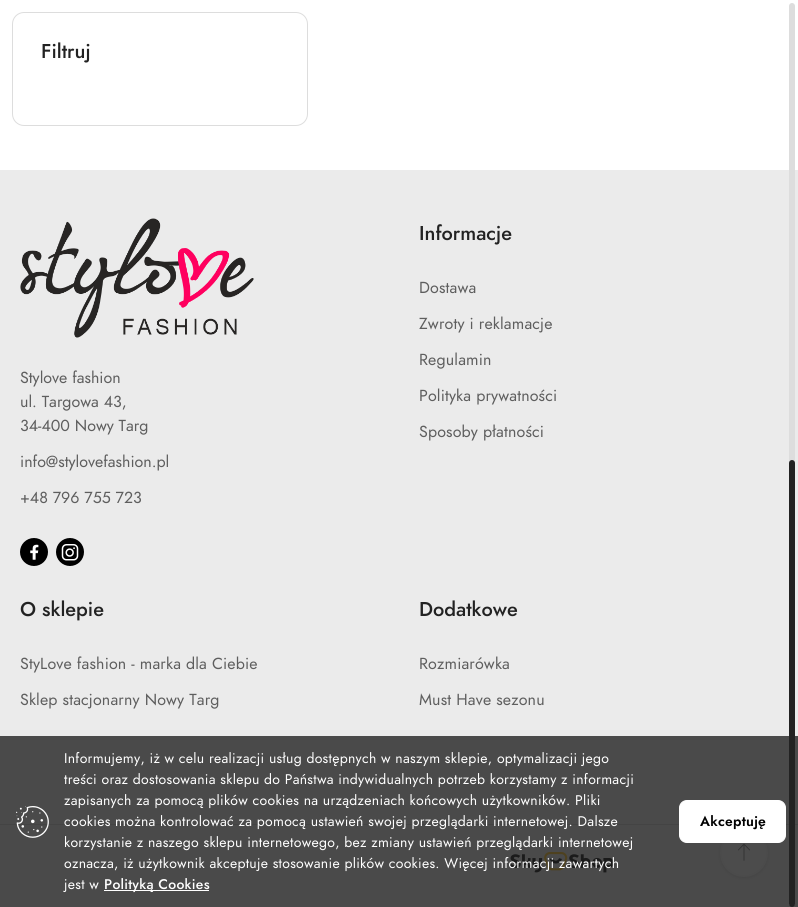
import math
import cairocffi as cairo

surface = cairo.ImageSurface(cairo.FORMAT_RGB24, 798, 907)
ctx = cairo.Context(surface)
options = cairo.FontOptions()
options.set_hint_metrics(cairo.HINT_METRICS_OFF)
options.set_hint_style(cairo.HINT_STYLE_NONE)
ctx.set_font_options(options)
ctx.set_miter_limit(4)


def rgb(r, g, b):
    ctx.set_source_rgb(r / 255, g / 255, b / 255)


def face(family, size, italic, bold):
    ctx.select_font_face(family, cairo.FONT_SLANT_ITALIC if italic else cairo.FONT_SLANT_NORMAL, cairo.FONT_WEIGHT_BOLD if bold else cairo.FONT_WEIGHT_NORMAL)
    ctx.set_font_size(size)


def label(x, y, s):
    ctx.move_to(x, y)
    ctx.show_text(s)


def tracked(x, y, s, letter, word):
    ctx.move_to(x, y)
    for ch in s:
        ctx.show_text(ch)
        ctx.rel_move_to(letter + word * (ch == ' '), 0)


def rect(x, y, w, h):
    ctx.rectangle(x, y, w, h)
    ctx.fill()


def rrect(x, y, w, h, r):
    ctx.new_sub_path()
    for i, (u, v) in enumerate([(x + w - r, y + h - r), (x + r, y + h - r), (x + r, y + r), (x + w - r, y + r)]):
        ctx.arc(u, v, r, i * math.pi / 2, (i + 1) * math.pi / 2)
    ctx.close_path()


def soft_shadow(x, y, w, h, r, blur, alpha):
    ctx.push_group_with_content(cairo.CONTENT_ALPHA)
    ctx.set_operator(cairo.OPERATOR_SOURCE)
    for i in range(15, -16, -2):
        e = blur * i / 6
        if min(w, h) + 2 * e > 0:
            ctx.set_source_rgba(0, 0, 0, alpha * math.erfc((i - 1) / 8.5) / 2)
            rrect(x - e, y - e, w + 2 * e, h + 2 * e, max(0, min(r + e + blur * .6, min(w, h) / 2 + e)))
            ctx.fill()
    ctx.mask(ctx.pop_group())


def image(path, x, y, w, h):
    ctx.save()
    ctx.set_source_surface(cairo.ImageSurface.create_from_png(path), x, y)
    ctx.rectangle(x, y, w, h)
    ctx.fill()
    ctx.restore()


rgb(255, 255, 255)
ctx.paint()
rrect(12.5, 12.5, 295, 113, 11.5)
rgb(221, 221, 221)
ctx.set_line_width(1)
ctx.stroke()
face('Jost Medium', 20, 0, 0)
rgb(34, 34, 34)
label(41, 58, 'Filtruj')
rgb(235, 235, 235)
rect(0, 170, 798, 737)
image('image0.png', 20, 218, 234, 120)
face('Jost', 16, 0, 0)
rgb(94, 94, 94)
label(20, 383, 'Stylove fashion')
label(20, 407, 'ul. Targowa 43,')
label(20, 431, '34-400 Nowy Targ')
label(20, 467, 'info@stylovefashion.pl')
label(20, 503, '+48 796 755 723')
rgb(0, 0, 0)
ctx.new_path()
ctx.arc(34, 552, 14, 0, 2 * math.pi)
ctx.fill()
image('image1.png', 30, 544, 9, 16)
ctx.arc(70, 552, 14, 0, 2 * math.pi)
ctx.fill()
image('image2.png', 61, 544, 18, 17)
face('Jost Medium', 20, 0, 0)
rgb(34, 34, 34)
label(419, 240, 'Informacje')
face('Jost', 16, 0, 0)
rgb(94, 94, 94)
tracked(419, 293, 'Dostawa', 0.15, 0)
tracked(419, 329, 'Zwroty i reklamacje', 0.15, 0)
tracked(419, 365, 'Regulamin', 0.15, 0)
tracked(419, 401, 'Polityka prywatności', 0.15, 0)
tracked(419, 437, 'Sposoby płatności', 0.15, 0)
face('Jost Medium', 20, 0, 0)
rgb(34, 34, 34)
label(20, 616, 'O sklepie')
face('Jost', 16, 0, 0)
rgb(94, 94, 94)
tracked(20, 669, 'StyLove fashion - marka dla Ciebie', 0.15, 0)
tracked(20, 705, 'Sklep stacjonarny Nowy Targ', 0.15, 0)
face('Jost Medium', 20, 0, 0)
rgb(34, 34, 34)
label(419, 616, 'Dodatkowe')
face('Jost', 16, 0, 0)
rgb(94, 94, 94)
tracked(419, 669, 'Rozmiarówka', 0.15, 0)
tracked(419, 705, 'Must Have sezonu', 0.15, 0)
rgb(204, 204, 204)
rect(0, 824, 798, 1)
image('image3.png', 510, 852, 104, 21)
rgb(94, 94, 94)
soft_shadow(720, 830, 48, 48, 24, 1.5, 0.2)
rgb(247, 247, 247)
ctx.arc(744, 853, 23, 0, 2 * math.pi)
ctx.fill_preserve()
rgb(239, 239, 239)
ctx.set_line_width(2)
ctx.stroke()
image('image5.png', 738, 843, 12, 18)
ctx.set_source_rgba(0.133, 0.133, 0.133, 0.8)
rect(0, 736, 798, 171)
image('image4.png', 16, 806, 33, 32)
face('Jost', 14, 0, 0)
rgb(255, 255, 255)
tracked(64, 763, 'Informujemy, iż w celu realizacji usług dostępnych w naszym sklepie, optymalizacji jego', 0.28, 0)
tracked(64, 784, 'treści oraz dostosowania sklepu do Państwa indywidualnych potrzeb korzystamy z informacji', 0.28, 0)
tracked(64, 805, 'zapisanych za pomocą plików cookies na urządzeniach końcowych użytkowników. Pliki', 0.28, 0)
tracked(64, 826, 'cookies można kontrolować za pomocą ustawień swojej przeglądarki internetowej. Dalsze', 0.28, 0)
tracked(64, 847, 'korzystanie z naszego sklepu internetowego, bez zmiany ustawień przeglądarki internetowej', 0.28, 0)
tracked(64, 868, 'oznacza, iż użytkownik akceptuje stosowanie plików cookies. Więcej informacji zawartych', 0.28, 0)
tracked(64, 889, 'jest w', 0.28, 0)
rect(104, 890, 105, 1)
face('Jost Medium', 14, 0, 0)
tracked(104, 889, 'Polityką Cookies', 0.28, 0)
rrect(679.5, 800.5, 106, 42, 7.5)
ctx.fill_preserve()
ctx.set_line_width(1)
ctx.stroke()
face('Jost SemiBold', 14, 0, 0)
rgb(0, 0, 0)
tracked(700, 826, 'Akceptuję', 0.25, 0)
rgb(221, 221, 221)
rrect(789, 3, 6, 903, 3)
ctx.fill()
rgb(34, 34, 34)
rrect(789, 460, 6, 447, 3)
ctx.fill()
surface.write_to_png('render.png')
